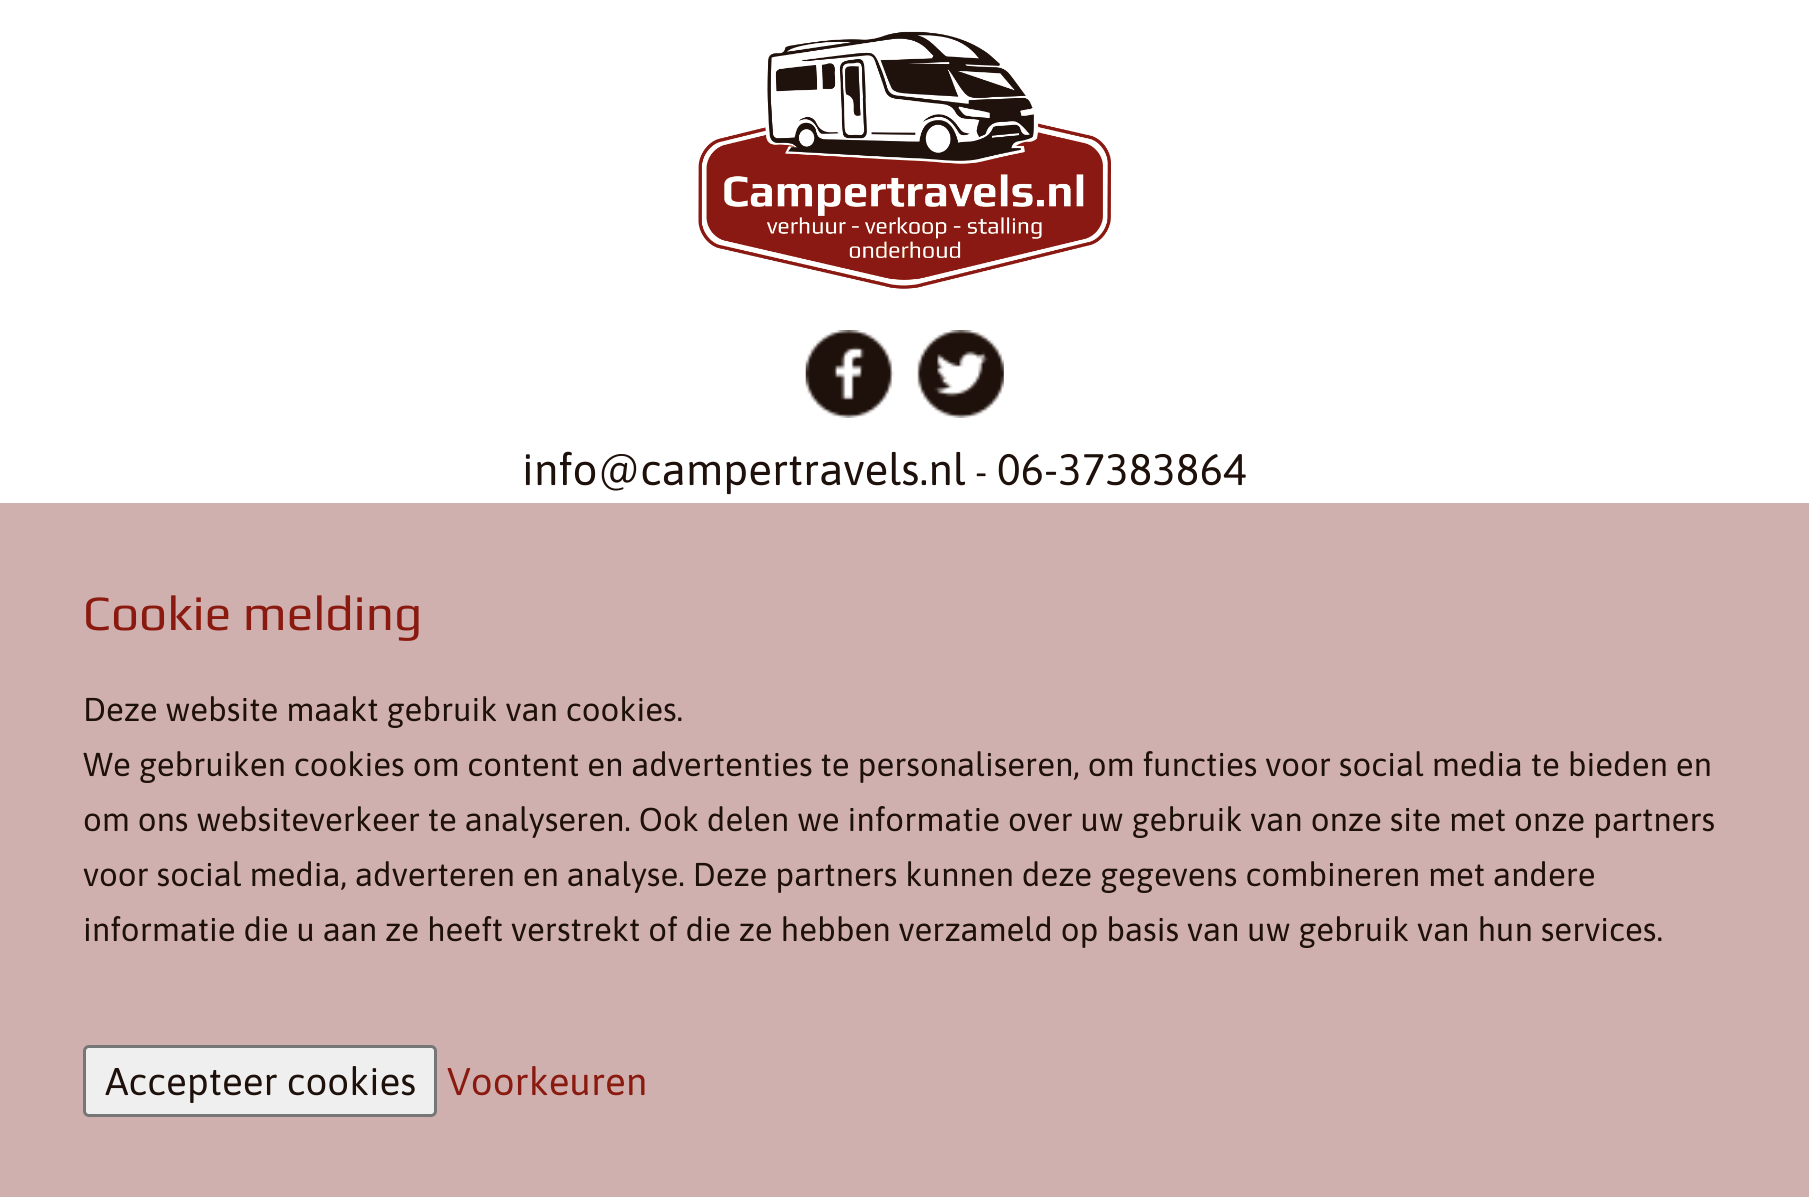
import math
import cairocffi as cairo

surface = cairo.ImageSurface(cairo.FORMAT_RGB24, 1809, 1197)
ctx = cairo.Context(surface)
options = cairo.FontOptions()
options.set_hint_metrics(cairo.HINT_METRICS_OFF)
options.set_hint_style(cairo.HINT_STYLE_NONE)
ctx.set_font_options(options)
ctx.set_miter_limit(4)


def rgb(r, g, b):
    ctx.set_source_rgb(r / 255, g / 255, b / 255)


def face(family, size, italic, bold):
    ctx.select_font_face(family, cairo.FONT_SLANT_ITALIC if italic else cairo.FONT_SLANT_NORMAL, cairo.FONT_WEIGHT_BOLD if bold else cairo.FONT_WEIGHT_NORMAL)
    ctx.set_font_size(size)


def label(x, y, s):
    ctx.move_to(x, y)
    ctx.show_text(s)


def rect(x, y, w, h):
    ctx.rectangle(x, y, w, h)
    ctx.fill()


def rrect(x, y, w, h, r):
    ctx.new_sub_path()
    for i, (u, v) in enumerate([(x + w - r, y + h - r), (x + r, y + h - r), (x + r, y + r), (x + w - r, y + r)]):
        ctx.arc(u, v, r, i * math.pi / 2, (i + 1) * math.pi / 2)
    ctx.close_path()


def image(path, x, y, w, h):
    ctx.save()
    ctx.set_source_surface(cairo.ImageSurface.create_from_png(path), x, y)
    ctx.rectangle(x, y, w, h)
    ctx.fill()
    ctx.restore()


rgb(255, 255, 255)
ctx.paint()
image('image0.png', 698, 31, 413, 258)
image('image1.png', 805, 330, 89, 88)
image('image2.png', 917, 330, 87, 88)
face('Asap', 44, 0, 0)
rgb(30, 16, 10)
label(522, 485, 'info@campertravels.nl')
face('Asap', 38.5, 0, 0)
label(975, 485, '-')
face('Asap', 44, 0, 0)
label(997, 485, '06-37383864')
rgb(207, 176, 174)
rect(0, 503, 1809, 694)
face('Play', 49.5, 0, 0)
rgb(138, 25, 15)
label(83, 630, 'Cookie melding')
face('Asap', 33, 0, 0)
rgb(30, 16, 10)
label(83, 721, 'Deze website maakt gebruik van cookies.')
label(83, 776, 'We gebruiken cookies om content en advertenties te personaliseren, om functies voor social media te bieden en')
label(83, 831, 'om ons websiteverkeer te analyseren. Ook delen we informatie over uw gebruik van onze site met onze partners')
label(83, 886, 'voor social media, adverteren en analyse. Deze partners kunnen deze gegevens combineren met andere')
label(83, 941, 'informatie die u aan ze heeft verstrekt of die ze hebben verzameld op basis van uw gebruik van hun services.')
rgb(239, 239, 239)
rrect(84.5, 1046.5, 351, 69, 4.5)
ctx.fill_preserve()
rgb(118, 118, 118)
ctx.set_line_width(3)
ctx.stroke()
face('Asap', 38.5, 0, 0)
rgb(30, 16, 10)
label(105, 1095, 'Accepteer cookies')
rgb(138, 25, 15)
label(447, 1095, 'Voorkeuren')
surface.write_to_png('render.png')
